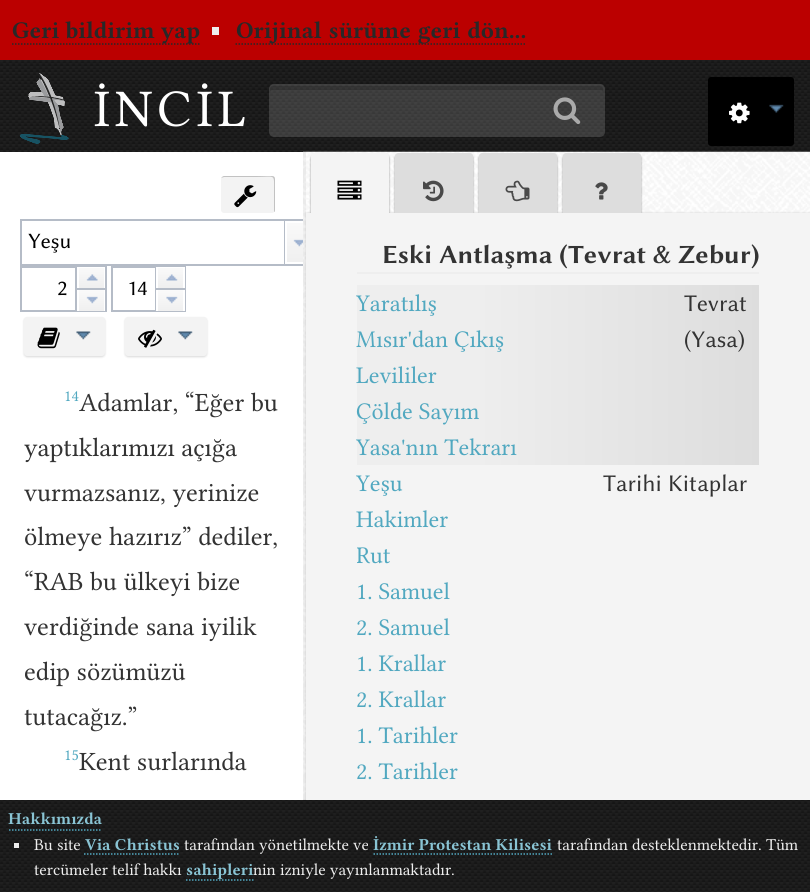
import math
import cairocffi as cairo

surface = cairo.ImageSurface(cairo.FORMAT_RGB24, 810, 892)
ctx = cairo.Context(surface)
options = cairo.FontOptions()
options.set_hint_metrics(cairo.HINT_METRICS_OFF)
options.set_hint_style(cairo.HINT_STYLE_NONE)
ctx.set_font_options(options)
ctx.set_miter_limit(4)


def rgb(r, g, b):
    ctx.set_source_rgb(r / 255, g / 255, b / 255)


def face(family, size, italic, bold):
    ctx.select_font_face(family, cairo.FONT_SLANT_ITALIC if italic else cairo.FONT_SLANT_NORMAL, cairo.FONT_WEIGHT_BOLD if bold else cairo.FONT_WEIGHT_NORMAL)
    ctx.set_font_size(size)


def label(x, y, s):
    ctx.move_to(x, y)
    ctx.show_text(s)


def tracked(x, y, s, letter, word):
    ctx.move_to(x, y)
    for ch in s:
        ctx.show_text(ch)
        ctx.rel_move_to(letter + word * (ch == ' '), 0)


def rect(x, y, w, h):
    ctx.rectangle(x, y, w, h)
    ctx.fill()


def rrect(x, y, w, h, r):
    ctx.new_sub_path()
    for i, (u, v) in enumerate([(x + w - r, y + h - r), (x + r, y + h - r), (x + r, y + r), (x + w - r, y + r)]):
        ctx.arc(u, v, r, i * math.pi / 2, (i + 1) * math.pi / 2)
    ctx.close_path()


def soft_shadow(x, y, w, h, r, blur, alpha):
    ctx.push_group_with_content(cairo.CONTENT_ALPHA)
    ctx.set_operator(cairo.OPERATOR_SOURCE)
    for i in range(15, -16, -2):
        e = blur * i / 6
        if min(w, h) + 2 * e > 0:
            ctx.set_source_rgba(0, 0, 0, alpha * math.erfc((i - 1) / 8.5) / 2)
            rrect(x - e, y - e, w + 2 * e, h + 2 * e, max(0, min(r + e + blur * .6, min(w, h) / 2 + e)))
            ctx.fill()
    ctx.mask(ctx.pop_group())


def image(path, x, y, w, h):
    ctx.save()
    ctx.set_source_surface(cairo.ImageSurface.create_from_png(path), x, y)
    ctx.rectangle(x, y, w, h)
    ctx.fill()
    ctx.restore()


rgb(255, 255, 255)
ctx.paint()
image('image0.png', 0, 60, 810, 832)
rgb(187, 0, 0)
rect(0, 0, 810, 60)
ctx.new_path()
ctx.move_to(12, 44)
ctx.line_to(199.5, 44)
rgb(40, 40, 40)
ctx.set_line_width(1.5)
ctx.set_dash([1.5, 1.5])
ctx.stroke()
face('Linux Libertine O', 24, 0, 1)
label(12, 38, 'Geri bildirim yap')
rgb(238, 238, 238)
rect(212, 27, 7, 8)
ctx.new_path()
ctx.move_to(235.5, 44)
ctx.line_to(525, 44)
rgb(40, 40, 40)
ctx.stroke()
tracked(236, 38, 'Orijinal sürüme geri dön...', 0, 1)
image('image1.png', 19, 73, 50, 71)
face('Linux Libertine O', 53, 0, 0)
rgb(255, 255, 255)
tracked(94, 126, 'İNCİL', 5.25, 0)
ctx.set_source_rgba(1, 1, 1, 0.15)
rrect(269, 84, 336, 53, 5)
ctx.fill()
ctx.set_source_rgba(0, 0, 0, 0.15)
ctx.new_path()
ctx.move_to(273, 90)
ctx.line_to(600, 90)
ctx.curve_to(602, 90, 603, 91, 603, 93)
ctx.curve_to(603, 91, 604, 86, 600, 86)
ctx.line_to(273, 86)
ctx.curve_to(269, 86, 270, 91, 270, 93)
ctx.curve_to(270, 91, 271, 90, 273, 90)
ctx.close_path()
ctx.fill()
image('image2.png', 553, 97, 28, 28)
rgb(0, 0, 0)
rrect(708, 77, 86, 69, 3)
ctx.fill()
image('image3.png', 729, 102, 21, 22)
image('image4.png', 769, 104, 15, 9)
rgb(255, 255, 255)
rect(0, 152, 303, 648)
rgb(243, 243, 243)
rrect(221, 176, 54, 37, 3)
ctx.fill()
ctx.set_source_rgba(0, 0, 0, 0.2)
ctx.new_path()
ctx.move_to(224, 177)
ctx.line_to(256, 177)
ctx.curve_to(276, 177, 274, 173, 274, 191)
ctx.line_to(274, 212)
ctx.curve_to(275, 212, 275, 211, 275, 210)
ctx.line_to(275, 179)
ctx.curve_to(275, 177, 274, 176, 272, 176)
ctx.line_to(224, 176)
ctx.curve_to(223, 176, 222, 177, 221, 178)
ctx.close_path()
ctx.fill()
image('image5.png', 234, 185, 23, 23)
rgb(238, 238, 238)
rect(303, 799, 3, 1)
image('image14.png', 303, 151, 507, 649)
ctx.set_source_rgba(0, 0, 0, 0.05)
rect(303, 152, 3, 648)
rgb(0, 0, 0)
soft_shadow(306, 213, 504, 587, 0, 1, 0.15)
rgb(244, 244, 244)
rect(306, 213, 504, 587)
ctx.save()
ctx.rectangle(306, 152, 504, 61)
ctx.clip()
rgb(0, 0, 0)
soft_shadow(311, 155, 78, 61, 3, 1, 0.4)
ctx.restore()
ctx.save()
ctx.rectangle(0, 152, 303, 228)
ctx.clip()
ctx.rectangle(21, 220, 289, 45)
rgb(181, 188, 199)
ctx.set_line_width(2)
ctx.set_dash([])
ctx.stroke()
ctx.restore()
face('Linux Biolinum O', 22, 0, 0)
rgb(0, 0, 0)
label(28, 248, 'Yeşu')
gradient = cairo.LinearGradient(297, 221, 297, 264)
gradient.add_color_stop_rgba(0, 0.98, 0.98, 0.98, 1)
gradient.add_color_stop_rgba(1, 0.937, 0.937, 0.937, 1)
ctx.set_source(gradient)
rect(287, 223, 16, 39)
rgb(181, 188, 199)
rect(284, 221, 1, 43)
image('image6.png', 293, 239, 10, 8)
ctx.rectangle(21, 267, 85, 44)
ctx.set_line_width(2)
ctx.set_dash([])
ctx.stroke()
rgb(0, 0, 0)
label(57, 295, '2')
rgb(181, 188, 199)
rect(75, 267, 2, 44)
gradient = cairo.LinearGradient(91, 267, 91, 288)
gradient.add_color_stop_rgba(0, 0.98, 0.98, 0.98, 1)
gradient.add_color_stop_rgba(1, 0.937, 0.937, 0.937, 1)
ctx.set_source(gradient)
rect(79, 268, 25, 20)
image('image7.png', 86, 274, 12, 7)
rgb(255, 255, 255)
rect(77, 267, 28, 1)
gradient = cairo.LinearGradient(91, 290, 91, 312)
gradient.add_color_stop_rgba(0, 0.98, 0.98, 0.98, 1)
gradient.add_color_stop_rgba(1, 0.937, 0.937, 0.937, 1)
ctx.set_source(gradient)
rect(79, 290, 25, 21)
rgb(181, 188, 199)
rect(77, 288, 28, 2)
image('image8.png', 86, 296, 12, 8)
rgb(255, 255, 255)
rect(104, 310, 1, 1)
rect(77, 310, 2, 1)
ctx.rectangle(112, 267, 73, 44)
rgb(181, 188, 199)
ctx.stroke()
rgb(0, 0, 0)
label(127, 295, '14')
rgb(181, 188, 199)
rect(155, 267, 1, 44)
gradient = cairo.LinearGradient(170, 267, 170, 288)
gradient.add_color_stop_rgba(0, 0.98, 0.98, 0.98, 1)
gradient.add_color_stop_rgba(1, 0.937, 0.937, 0.937, 1)
ctx.set_source(gradient)
rect(158, 268, 25, 20)
image('image9.png', 166, 274, 12, 7)
rgb(255, 255, 255)
rect(156, 267, 29, 1)
rect(184, 267, 1, 21)
gradient = cairo.LinearGradient(170, 290, 170, 312)
gradient.add_color_stop_rgba(0, 0.98, 0.98, 0.98, 1)
gradient.add_color_stop_rgba(1, 0.937, 0.937, 0.937, 1)
ctx.set_source(gradient)
rect(158, 290, 25, 21)
rgb(181, 188, 199)
rect(156, 288, 29, 2)
image('image10.png', 166, 296, 12, 8)
rgb(255, 255, 255)
rect(183, 290, 2, 21)
rect(156, 310, 2, 1)
rgb(0, 0, 0)
soft_shadow(24, 318, 81, 39, 3, 1, 0.15)
rgb(243, 243, 243)
rrect(24, 317, 81, 39, 3)
ctx.fill()
image('image11.png', 37, 327, 23, 22)
image('image12.png', 76, 331, 15, 9)
rgb(0, 0, 0)
soft_shadow(125, 318, 82, 39, 3, 1, 0.15)
rgb(243, 243, 243)
rrect(125, 317, 82, 39, 3)
ctx.fill()
image('image13.png', 138, 329, 24, 19)
image('image12.png', 178, 331, 15, 9)
face('Linux Libertine O', 26.4, 0, 0)
rgb(51, 51, 51)
label(79, 411, 'Adamlar, “Eğer bu')
face('Linux Libertine O', 16, 0, 0)
rgb(81, 168, 192)
label(64, 401, '14')
face('Linux Libertine O', 26.4, 0, 0)
rgb(51, 51, 51)
label(24, 456, 'yaptıklarımızı açığa')
label(24, 501, 'vurmazsanız, yerinize')
label(24, 545, 'ölmeye hazırız” dediler,')
label(24, 590, '“RAB bu ülkeyi bize')
label(24, 635, 'verdiğinde sana iyilik')
label(24, 680, 'edip sözümüzü')
label(24, 725, 'tutacağız.”')
face('Linux Libertine O', 16, 0, 0)
rgb(81, 168, 192)
label(64, 760, '15')
face('Linux Libertine O', 26.4, 0, 0)
rgb(51, 51, 51)
label(79, 770, 'Kent surlarında')
rgb(244, 244, 244)
ctx.new_path()
ctx.move_to(314, 153)
ctx.line_to(386, 153)
ctx.curve_to(387.5, 153, 389, 154.5, 389, 156)
ctx.line_to(389, 213)
ctx.line_to(311, 213)
ctx.line_to(311, 156)
ctx.curve_to(311, 154.5, 312.5, 153, 314, 153)
ctx.close_path()
ctx.fill()
image('image15.png', 337, 180, 25, 20)
ctx.save()
ctx.rectangle(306, 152, 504, 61)
ctx.clip()
rgb(0, 0, 0)
soft_shadow(395, 155, 78, 60, 3, 1, 0.4)
ctx.restore()
rgb(221, 221, 221)
ctx.new_path()
ctx.move_to(398, 153)
ctx.line_to(470, 153)
ctx.curve_to(471.5, 153, 473, 154.5, 473, 156)
ctx.line_to(473, 213)
ctx.line_to(395, 213)
ctx.line_to(395, 156)
ctx.curve_to(395, 154.5, 396.5, 153, 398, 153)
ctx.close_path()
ctx.fill()
image('image16.png', 423, 180, 21, 22)
ctx.save()
ctx.rectangle(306, 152, 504, 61)
ctx.clip()
rgb(0, 0, 0)
soft_shadow(479, 155, 78, 60, 3, 1, 0.4)
ctx.restore()
ctx.new_path()
ctx.move_to(482, 153)
ctx.line_to(554, 153)
ctx.curve_to(555.5, 153, 557, 154.5, 557, 156)
ctx.line_to(557, 213)
ctx.line_to(479, 213)
ctx.line_to(479, 156)
ctx.curve_to(479, 154.5, 480.5, 153, 482, 153)
ctx.close_path()
ctx.fill()
image('image17.png', 505, 180, 25, 22)
ctx.save()
ctx.rectangle(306, 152, 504, 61)
ctx.clip()
rgb(0, 0, 0)
soft_shadow(563, 155, 78, 60, 3, 1, 0.4)
ctx.restore()
ctx.new_path()
ctx.move_to(566, 153)
ctx.line_to(638, 153)
ctx.curve_to(639.5, 153, 641, 154.5, 641, 156)
ctx.line_to(641, 213)
ctx.line_to(563, 213)
ctx.line_to(563, 156)
ctx.curve_to(563, 154.5, 564.5, 153, 566, 153)
ctx.close_path()
ctx.fill()
image('image18.png', 595, 182, 13, 18)
rgb(238, 238, 238)
rect(357, 272, 402, 2)
face('Linux Biolinum O', 26.4, 0, 1)
rgb(51, 51, 51)
label(382, 263, 'Eski Antlaşma (Tevrat & Zebur)')
gradient = cairo.LinearGradient(357, 375, 759, 375)
gradient.add_color_stop_rgba(0.3, 0.933, 0.933, 0.933, 1)
gradient.add_color_stop_rgba(1, 0.867, 0.867, 0.867, 1)
ctx.set_source(gradient)
rect(357, 285, 402, 180)
face('Linux Libertine O', 24, 0, 0)
rgb(81, 168, 192)
label(356, 311, 'Yaratılış')
label(356, 347, 'Mısır\'dan Çıkış')
label(356, 383, 'Levililer')
label(356, 419, 'Çölde Sayım')
label(356, 455, 'Yasa\'nın Tekrarı')
face('Linux Biolinum O', 24, 0, 0)
rgb(51, 51, 51)
label(684, 311, 'Tevrat')
label(684, 347, '(Yasa)')
face('Linux Libertine O', 24, 0, 0)
rgb(81, 168, 192)
label(356, 491, 'Yeşu')
label(356, 527, 'Hakimler')
ctx.save()
ctx.rectangle(357, 237, 402, 563)
ctx.clip()
label(356, 563, 'Rut')
ctx.restore()
label(356, 599, '1. Samuel')
label(356, 635, '2. Samuel')
label(356, 671, '1. Krallar')
label(356, 707, '2. Krallar')
label(356, 743, '1. Tarihler')
label(356, 779, '2. Tarihler')
face('Linux Biolinum O', 24, 0, 0)
rgb(51, 51, 51)
label(603, 491, 'Tarihi Kitaplar')
face('Linux Libertine O', 16.75, 0, 1)
rgb(137, 196, 212)
label(8, 824, 'Hakkımızda')
ctx.new_path()
ctx.move_to(9, 830)
ctx.line_to(102, 830)
rgb(81, 168, 192)
ctx.set_line_width(1.5)
ctx.set_dash([1.5, 1.5])
ctx.stroke()
rgb(238, 238, 238)
rect(14, 843, 5, 5)
face('Linux Libertine O', 16.75, 0, 0)
label(34, 850, 'Bu site')
face('Linux Libertine O', 16.75, 0, 1)
rgb(137, 196, 212)
label(85, 850, 'Via Christus')
ctx.new_path()
ctx.move_to(84, 854)
ctx.line_to(180, 854)
rgb(81, 168, 192)
ctx.stroke()
face('Linux Libertine O', 16.75, 0, 0)
rgb(238, 238, 238)
label(184, 850, 'tarafından yönetilmekte ve')
face('Linux Libertine O', 16.75, 0, 1)
rgb(137, 196, 212)
label(373, 850, 'İzmir Protestan Kilisesi')
ctx.new_path()
ctx.move_to(373.5, 854)
ctx.line_to(552, 854)
rgb(81, 168, 192)
ctx.stroke()
face('Linux Libertine O', 16.75, 0, 0)
rgb(238, 238, 238)
label(557, 850, 'tarafından desteklenmektedir. Tüm')
label(34, 875, 'tercümeler telif hakkı')
face('Linux Libertine O', 16.75, 0, 1)
rgb(137, 196, 212)
label(186, 875, 'sahipleri')
ctx.new_path()
ctx.move_to(186, 880)
ctx.line_to(253.5, 880)
rgb(81, 168, 192)
ctx.stroke()
face('Linux Libertine O', 16.75, 0, 0)
rgb(238, 238, 238)
label(253, 875, 'nin izniyle yayınlanmaktadır.')
surface.write_to_png('render.png')
